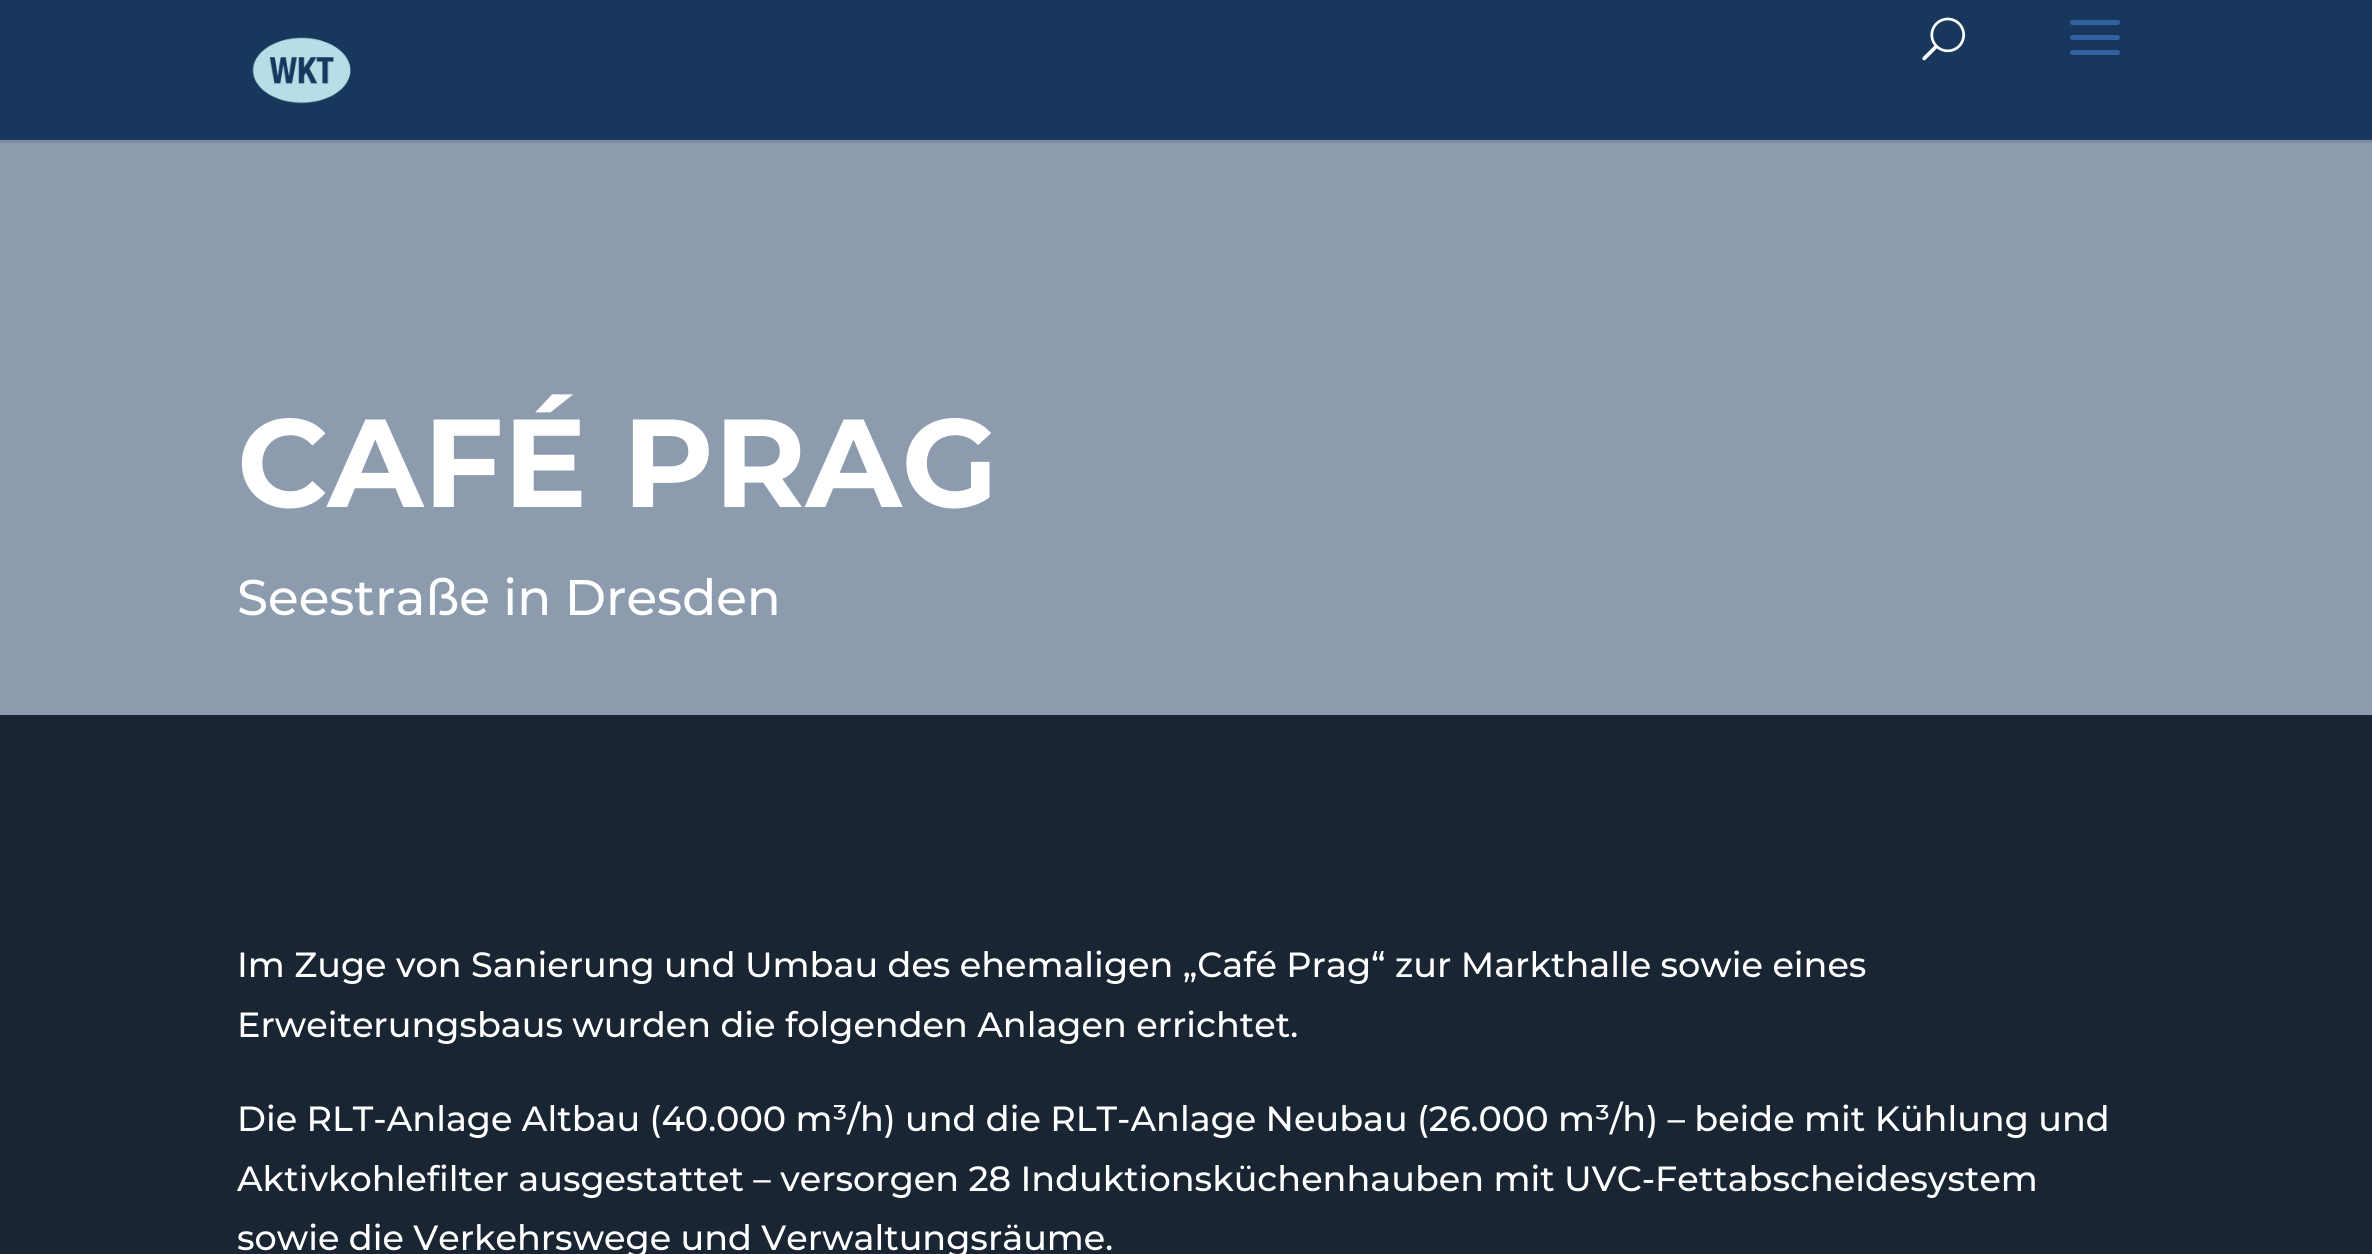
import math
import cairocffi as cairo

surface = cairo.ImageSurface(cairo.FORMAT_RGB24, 2372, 1254)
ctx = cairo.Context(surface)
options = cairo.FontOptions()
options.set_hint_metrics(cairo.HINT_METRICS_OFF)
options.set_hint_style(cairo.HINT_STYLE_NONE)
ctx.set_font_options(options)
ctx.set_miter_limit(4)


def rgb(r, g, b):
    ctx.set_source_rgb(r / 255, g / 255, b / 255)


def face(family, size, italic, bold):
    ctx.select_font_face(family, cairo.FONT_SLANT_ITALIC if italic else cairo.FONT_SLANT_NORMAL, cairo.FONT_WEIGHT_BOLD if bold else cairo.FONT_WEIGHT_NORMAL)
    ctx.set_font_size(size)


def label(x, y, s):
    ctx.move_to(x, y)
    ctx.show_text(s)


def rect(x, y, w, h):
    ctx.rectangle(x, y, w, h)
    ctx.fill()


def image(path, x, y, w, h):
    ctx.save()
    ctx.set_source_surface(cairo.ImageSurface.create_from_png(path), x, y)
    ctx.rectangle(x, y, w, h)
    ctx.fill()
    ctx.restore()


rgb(26, 37, 51)
ctx.paint()
rgb(126, 140, 157)
ctx.new_path()
ctx.move_to(0, 140)
ctx.line_to(0, 143)
ctx.line_to(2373, 143)
ctx.line_to(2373, 3)
ctx.line_to(2372, 3)
ctx.line_to(2372, 140)
ctx.close_path()
ctx.fill()
rgb(24, 55, 93)
rect(0, 0, 2372, 140)
image('image0.png', 252, 37, 99, 67)
image('image1.png', 1922, 17, 43, 44)
image('image2.png', 2070, 20, 50, 35)
rgb(140, 155, 174)
rect(0, 143, 2372, 572)
face('Montserrat', 125, 0, 1)
rgb(255, 255, 255)
label(237, 507, 'CAFÉ PRAG')
face('Montserrat Medium', 50, 0, 0)
label(237, 615, 'Seestraße in Dresden')
face('Montserrat Medium', 35, 0, 0)
label(237, 977, 'Im Zuge von Sanierung und Umbau des ehemaligen „Café Prag“ zur Markthalle sowie eines')
label(237, 1037, 'Erweiterungsbaus wurden die folgenden Anlagen errichtet.')
label(237, 1131, 'Die RLT-Anlage Altbau (40.000 m³/h) und die RLT-Anlage Neubau (26.000 m³/h) – beide mit Kühlung und')
label(237, 1191, 'Aktivkohlefilter ausgestattet – versorgen 28 Induktionsküchenhauben mit UVC-Fettabscheidesystem')
label(237, 1250, 'sowie die Verkehrswege und Verwaltungsräume.')
surface.write_to_png('render.png')
